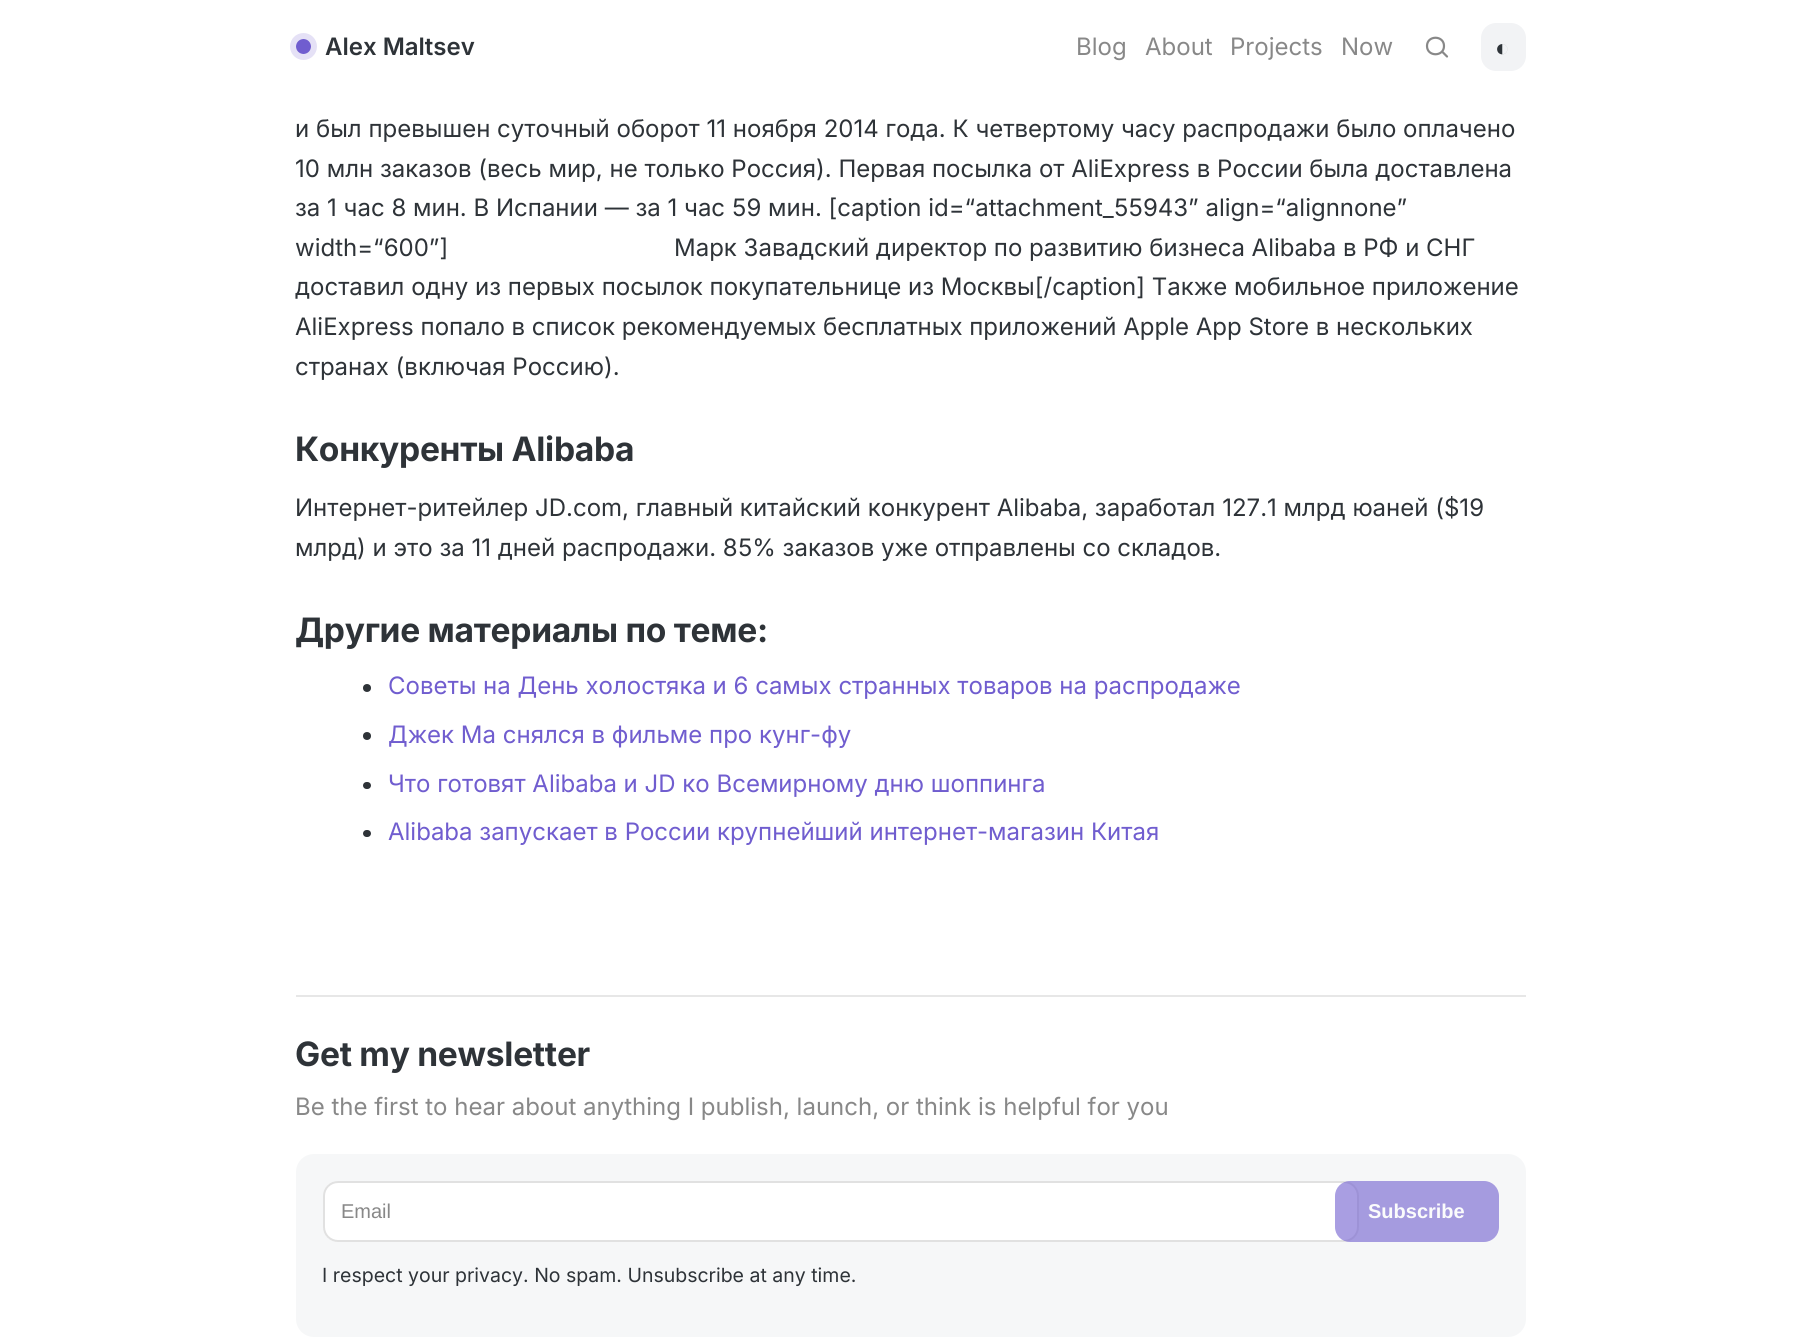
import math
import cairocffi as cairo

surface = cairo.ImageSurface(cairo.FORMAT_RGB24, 1819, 1344)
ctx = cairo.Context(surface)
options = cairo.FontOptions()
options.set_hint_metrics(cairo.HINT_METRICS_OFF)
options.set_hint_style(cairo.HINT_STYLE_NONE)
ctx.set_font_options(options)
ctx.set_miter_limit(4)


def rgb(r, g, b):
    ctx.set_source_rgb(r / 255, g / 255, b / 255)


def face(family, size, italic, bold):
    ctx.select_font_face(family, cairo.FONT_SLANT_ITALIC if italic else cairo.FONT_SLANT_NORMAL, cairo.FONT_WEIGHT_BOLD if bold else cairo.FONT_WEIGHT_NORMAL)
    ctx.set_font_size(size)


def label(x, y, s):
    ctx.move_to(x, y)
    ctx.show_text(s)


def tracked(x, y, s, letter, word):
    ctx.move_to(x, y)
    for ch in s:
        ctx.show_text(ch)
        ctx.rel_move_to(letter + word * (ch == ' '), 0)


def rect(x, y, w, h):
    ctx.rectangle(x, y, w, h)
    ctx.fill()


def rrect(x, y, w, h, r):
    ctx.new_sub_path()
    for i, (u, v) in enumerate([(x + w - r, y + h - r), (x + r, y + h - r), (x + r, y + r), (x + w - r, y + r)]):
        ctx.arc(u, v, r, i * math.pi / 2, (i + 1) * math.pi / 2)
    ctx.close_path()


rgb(255, 255, 255)
ctx.paint()
ctx.arc(303.5, 46.5, 10.5, 0, 2 * math.pi)
ctx.set_source_rgba(0.439, 0.365, 0.812, 0.18)
ctx.set_line_width(6)
ctx.stroke()
rgb(112, 93, 207)
ctx.arc(303.5, 46.5, 7.5, 0, 2 * math.pi)
ctx.fill()
face('Inter SemiBold', 24, 0, 0)
rgb(46, 51, 56)
label(325, 55, 'Alex Maltsev')
face('Inter', 24, 0, 0)
rgb(136, 136, 136)
label(1076, 55, 'Blog')
label(1145, 55, 'About')
label(1230, 55, 'Projects')
label(1341, 55, 'Now')
ctx.new_path()
ctx.move_to(1447, 56.5)
ctx.line_to(1442.5, 52)
ctx.move_to(1444, 46)
ctx.curve_to(1444, 57, 1427, 57, 1427, 46)
ctx.curve_to(1427, 35, 1444, 35, 1444, 46)
ctx.close_path()
ctx.set_line_width(2.2)
ctx.set_line_cap(cairo.LINE_CAP_ROUND)
ctx.set_line_join(cairo.LINE_JOIN_ROUND)
ctx.stroke()
rgb(242, 243, 245)
rrect(1481, 23, 45, 48, 15)
ctx.fill()
face('Liberation Sans', 24, 0, 0)
rgb(46, 51, 56)
label(1495, 56, '◐')
face('Inter', 24, 0, 0)
label(295, 137, 'и был превышен суточный оборот 11 ноября 2014 года. К четвертому часу распродажи было оплачено')
label(295, 177, '10 млн заказов (весь мир, не только Россия). Первая посылка от AliExpress в России была доставлена')
label(295, 216, 'за 1 час 8 мин. В Испании — за 1 час 59 мин. [caption id=“attachment_55943” align=“alignnone”')
label(295, 256, 'width=“600”]')
label(674, 256, 'Марк Завадский директор по развитию бизнеса Alibaba в РФ и СНГ')
label(295, 295, 'доставил одну из первых посылок покупательнице из Москвы[/caption] Также мобильное приложение')
label(295, 335, 'AliExpress попало в список рекомендуемых бесплатных приложений Apple App Store в нескольких')
label(295, 375, 'странах (включая Россию).')
face('Inter', 33.6, 0, 1)
tracked(295, 461, 'Конкуренты Alibaba', -0.3, 0)
face('Inter', 24, 0, 0)
label(295, 516, 'Интернет-ритейлер JD.com, главный китайский конкурент Alibaba, заработал 127.1 млрд юаней ($19')
label(295, 556, 'млрд) и это за 11 дней распродажи. 85% заказов уже отправлены со складов.')
face('Inter', 33.6, 0, 1)
tracked(295, 642, 'Другие материалы по теме:', -0.3, 0)
ctx.new_path()
ctx.arc(367, 688, 4, 0, 2 * math.pi)
ctx.fill()
face('Inter', 24, 0, 0)
rgb(112, 93, 207)
label(388, 694, 'Советы на День холостяка и 6 самых странных товаров на распродаже')
rgb(46, 51, 56)
ctx.new_path()
ctx.arc(367, 736, 4, 0, 2 * math.pi)
ctx.fill()
rgb(112, 93, 207)
label(388, 743, 'Джек Ма снялся в фильме про кунг-фу')
rgb(46, 51, 56)
rrect(363, 782, 8, 7, 3.5)
ctx.fill()
rgb(112, 93, 207)
label(388, 792, 'Что готовят Alibaba и JD ко Всемирному дню шоппинга')
rgb(46, 51, 56)
rrect(363, 830, 8, 7, 3.5)
ctx.fill()
rgb(112, 93, 207)
label(388, 840, 'Alibaba запускает в России крупнейший интернет-магазин Китая')
rgb(231, 231, 231)
rect(296, 995, 1230, 2)
face('Inter', 33.6, 0, 1)
rgb(46, 51, 56)
tracked(295, 1066, 'Get my newsletter', -0.3, 0)
face('Inter', 24, 0, 0)
rgb(136, 136, 136)
label(295, 1115, 'Be the first to hear about anything I publish, launch, or think is helpful for you')
rgb(246, 247, 248)
rrect(296, 1154, 1230, 183, 18)
ctx.fill()
rgb(255, 255, 255)
rrect(323, 1181, 1036, 61, 15)
ctx.fill()
rrect(324, 1182, 1034, 59, 14)
ctx.set_source_rgba(0.533, 0.533, 0.533, 0.25)
ctx.set_line_width(2)
ctx.set_line_cap(cairo.LINE_CAP_BUTT)
ctx.set_line_join(cairo.LINE_JOIN_MITER)
ctx.stroke()
face('Liberation Sans', 20, 0, 0)
rgb(136, 136, 136)
label(341, 1218, 'Email')
ctx.set_source_rgba(0.439, 0.365, 0.812, 0.6)
rrect(1335, 1181, 164, 61, 15)
ctx.fill()
face('Liberation Sans', 20, 0, 1)
rgb(251, 252, 252)
label(1368, 1218, 'Subscribe')
face('Inter', 19.5, 0, 0)
rgb(46, 51, 56)
label(322, 1282, 'I respect your privacy. No spam. Unsubscribe at any time.')
surface.write_to_png('render.png')
